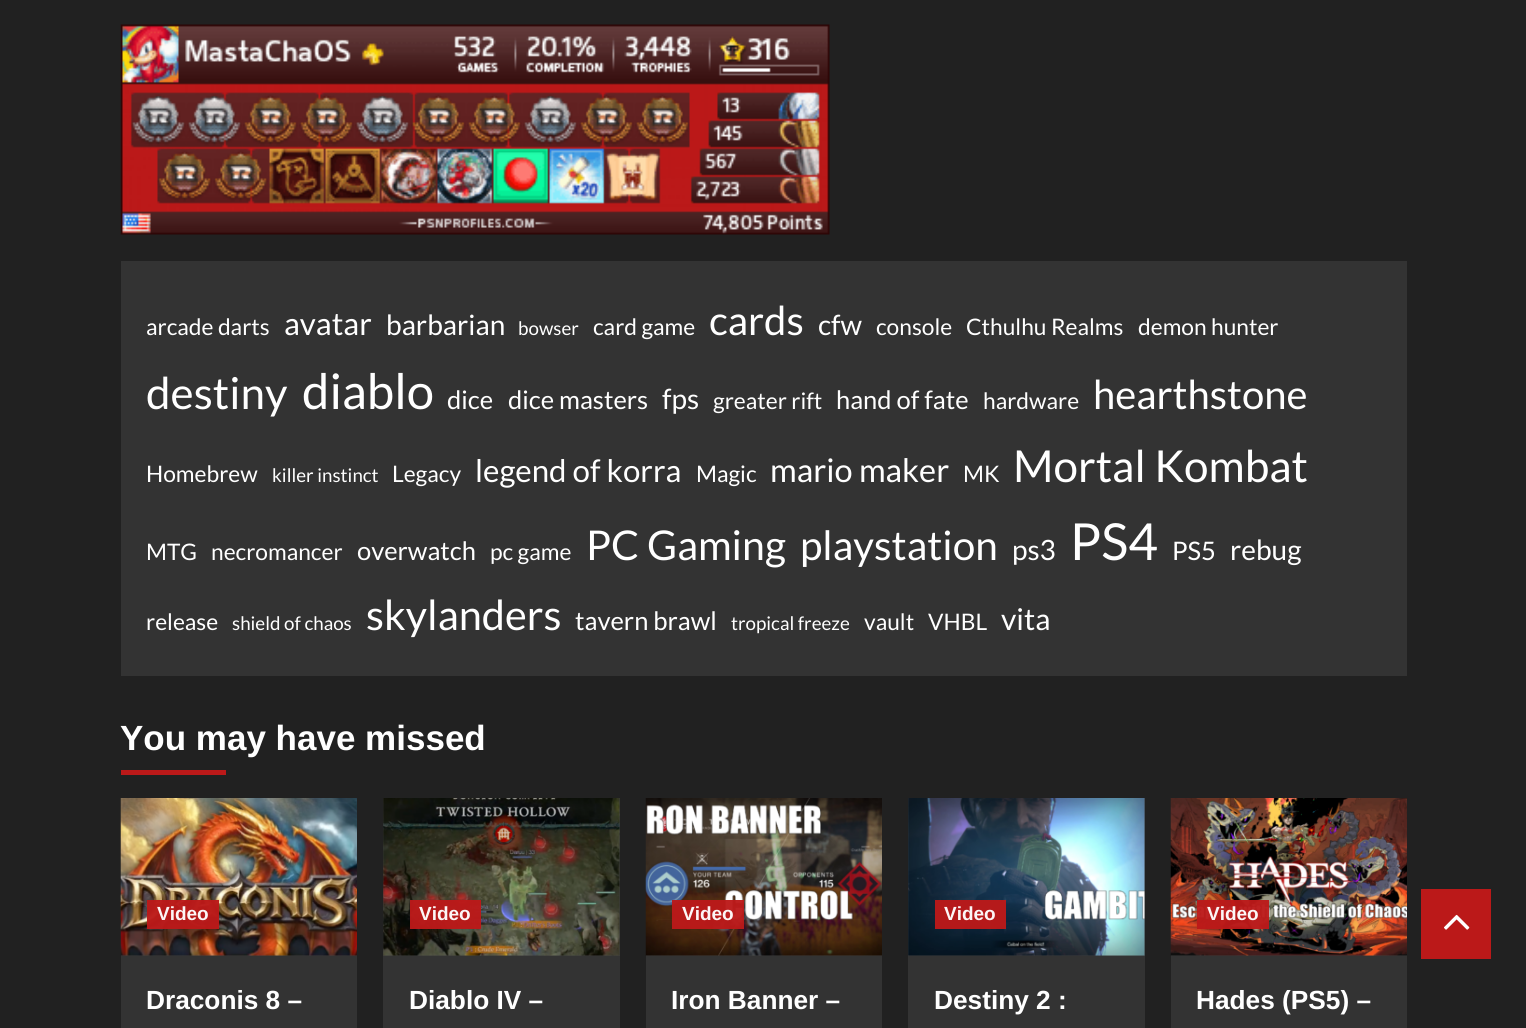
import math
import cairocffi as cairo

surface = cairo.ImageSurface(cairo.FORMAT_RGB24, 1526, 1028)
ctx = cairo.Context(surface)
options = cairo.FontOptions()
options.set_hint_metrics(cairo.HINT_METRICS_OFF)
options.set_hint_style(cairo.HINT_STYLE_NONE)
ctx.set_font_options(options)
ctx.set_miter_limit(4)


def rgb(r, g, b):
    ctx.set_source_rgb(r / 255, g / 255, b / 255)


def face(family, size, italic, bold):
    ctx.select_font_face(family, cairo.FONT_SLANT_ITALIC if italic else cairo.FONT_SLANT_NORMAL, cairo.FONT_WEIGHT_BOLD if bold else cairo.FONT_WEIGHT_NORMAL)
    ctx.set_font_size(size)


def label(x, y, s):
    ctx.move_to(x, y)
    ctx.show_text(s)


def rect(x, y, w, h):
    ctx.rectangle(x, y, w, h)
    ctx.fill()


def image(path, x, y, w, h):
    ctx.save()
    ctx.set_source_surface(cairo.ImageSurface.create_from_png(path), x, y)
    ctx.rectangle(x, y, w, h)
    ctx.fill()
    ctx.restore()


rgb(33, 33, 33)
ctx.paint()
image('image0.png', 120, 24, 710, 211)
rgb(51, 51, 51)
rect(121, 261, 1286, 415)
face('Lato', 22.75, 0, 0)
rgb(255, 255, 255)
label(146, 335, 'arcade darts')
face('Lato', 31.25, 0, 0)
label(284, 335, 'avatar')
face('Lato', 28, 0, 0)
label(386, 335, 'barbarian')
face('Lato', 18.75, 0, 0)
label(518, 335, 'bowser')
face('Lato', 22.75, 0, 0)
label(593, 335, 'card game')
face('Lato', 40, 0, 0)
label(709, 335, 'cards')
face('Lato', 28, 0, 0)
label(818, 335, 'cfw')
face('Lato', 22.75, 0, 0)
label(876, 335, 'console')
label(966, 335, 'Cthulhu Realms')
label(1138, 335, 'demon hunter')
face('Lato', 44, 0, 0)
label(146, 409, 'destiny')
face('Lato', 49, 0, 0)
label(302, 409, 'diablo')
face('Lato', 25.5, 0, 0)
label(447, 409, 'dice')
label(508, 409, 'dice masters')
face('Lato', 28, 0, 0)
label(662, 409, 'fps')
face('Lato', 22.75, 0, 0)
label(713, 409, 'greater rift')
face('Lato', 25.5, 0, 0)
label(836, 409, 'hand of fate')
face('Lato', 22.75, 0, 0)
label(983, 409, 'hardware')
face('Lato', 40, 0, 0)
label(1093, 409, 'hearthstone')
face('Lato', 22.75, 0, 0)
label(146, 482, 'Homebrew')
face('Lato', 18.75, 0, 0)
label(272, 482, 'killer instinct')
face('Lato', 22.75, 0, 0)
label(392, 482, 'Legacy')
face('Lato', 31.25, 0, 0)
label(475, 482, 'legend of korra')
face('Lato', 22.75, 0, 0)
label(696, 482, 'Magic')
face('Lato', 32.5, 0, 0)
label(770, 482, 'mario maker')
face('Lato', 22.75, 0, 0)
label(963, 482, 'MK')
face('Lato', 44, 0, 0)
label(1013, 482, 'Mortal Kombat')
face('Lato', 22.75, 0, 0)
label(146, 560, 'MTG')
label(211, 560, 'necromancer')
face('Lato', 25.5, 0, 0)
label(357, 560, 'overwatch')
face('Lato', 22.75, 0, 0)
label(490, 560, 'pc game')
face('Lato', 41, 0, 0)
label(586, 560, 'PC Gaming')
face('Lato', 40.5, 0, 0)
label(800, 560, 'playstation')
face('Lato', 28, 0, 0)
label(1012, 560, 'ps3')
face('Lato', 51, 0, 0)
label(1070, 560, 'PS4')
face('Lato', 25.5, 0, 0)
label(1172, 560, 'PS5')
face('Lato', 28, 0, 0)
label(1230, 560, 'rebug')
face('Lato', 22.75, 0, 0)
label(146, 630, 'release')
face('Lato', 18.75, 0, 0)
label(232, 630, 'shield of chaos')
face('Lato', 41.5, 0, 0)
label(366, 630, 'skylanders')
face('Lato', 25.5, 0, 0)
label(575, 630, 'tavern brawl')
face('Lato', 18.75, 0, 0)
label(731, 630, 'tropical freeze')
face('Lato', 22.75, 0, 0)
label(864, 630, 'vault')
label(928, 630, 'VHBL')
face('Lato', 30, 0, 0)
label(1001, 630, 'vita')
face('Liberation Sans', 35, 0, 1)
label(120, 750, 'You may have missed')
rgb(187, 25, 25)
rect(121, 770, 105, 5)
rgb(51, 51, 51)
rect(121, 956, 236, 72)
rgb(61, 61, 61)
rect(121, 955, 236, 1)
image('image1.png', 120, 798, 237, 158)
ctx.set_source_rgba(0.733, 0.098, 0.098, 0.96)
rect(147, 900, 72, 29)
face('Liberation Sans', 19, 0, 1)
rgb(252, 246, 246)
label(157, 920, 'Video')
face('Liberation Sans', 26.25, 0, 1)
rgb(255, 255, 255)
label(146, 1009, 'Draconis 8 –')
rgb(51, 51, 51)
rect(383, 956, 237, 72)
rgb(61, 61, 61)
rect(383, 798, 237, 158)
image('image2.png', 383, 798, 237, 158)
ctx.set_source_rgba(0.733, 0.098, 0.098, 0.96)
rect(410, 900, 71, 29)
face('Liberation Sans', 19, 0, 1)
rgb(252, 246, 246)
label(419, 920, 'Video')
face('Liberation Sans', 26.25, 0, 1)
rgb(255, 255, 255)
label(409, 1009, 'Diablo IV –')
rgb(51, 51, 51)
rect(646, 956, 236, 72)
rgb(61, 61, 61)
rect(646, 955, 236, 1)
image('image3.png', 645, 798, 237, 158)
ctx.set_source_rgba(0.733, 0.098, 0.098, 0.96)
rect(672, 900, 72, 29)
face('Liberation Sans', 19, 0, 1)
rgb(252, 246, 246)
label(682, 920, 'Video')
face('Liberation Sans', 26.25, 0, 1)
rgb(255, 255, 255)
label(671, 1009, 'Iron Banner –')
rgb(51, 51, 51)
rect(908, 956, 237, 72)
rgb(61, 61, 61)
rect(908, 798, 237, 158)
image('image4.png', 908, 798, 237, 158)
ctx.set_source_rgba(0.733, 0.098, 0.098, 0.96)
rect(935, 900, 71, 29)
face('Liberation Sans', 19, 0, 1)
rgb(252, 246, 246)
label(944, 920, 'Video')
face('Liberation Sans', 26.25, 0, 1)
rgb(255, 255, 255)
label(934, 1009, 'Destiny 2 :')
rgb(51, 51, 51)
rect(1171, 956, 236, 72)
rgb(61, 61, 61)
rect(1171, 955, 236, 1)
image('image5.png', 1170, 798, 237, 158)
ctx.set_source_rgba(0.733, 0.098, 0.098, 0.96)
rect(1197, 900, 72, 29)
face('Liberation Sans', 19, 0, 1)
rgb(252, 246, 246)
label(1207, 920, 'Video')
face('Liberation Sans', 26.25, 0, 1)
rgb(255, 255, 255)
label(1196, 1009, 'Hades (PS5) –')
rgb(187, 25, 25)
rect(1421, 889, 70, 70)
image('image6.png', 1444, 914, 26, 16)
surface.write_to_png('render.png')
